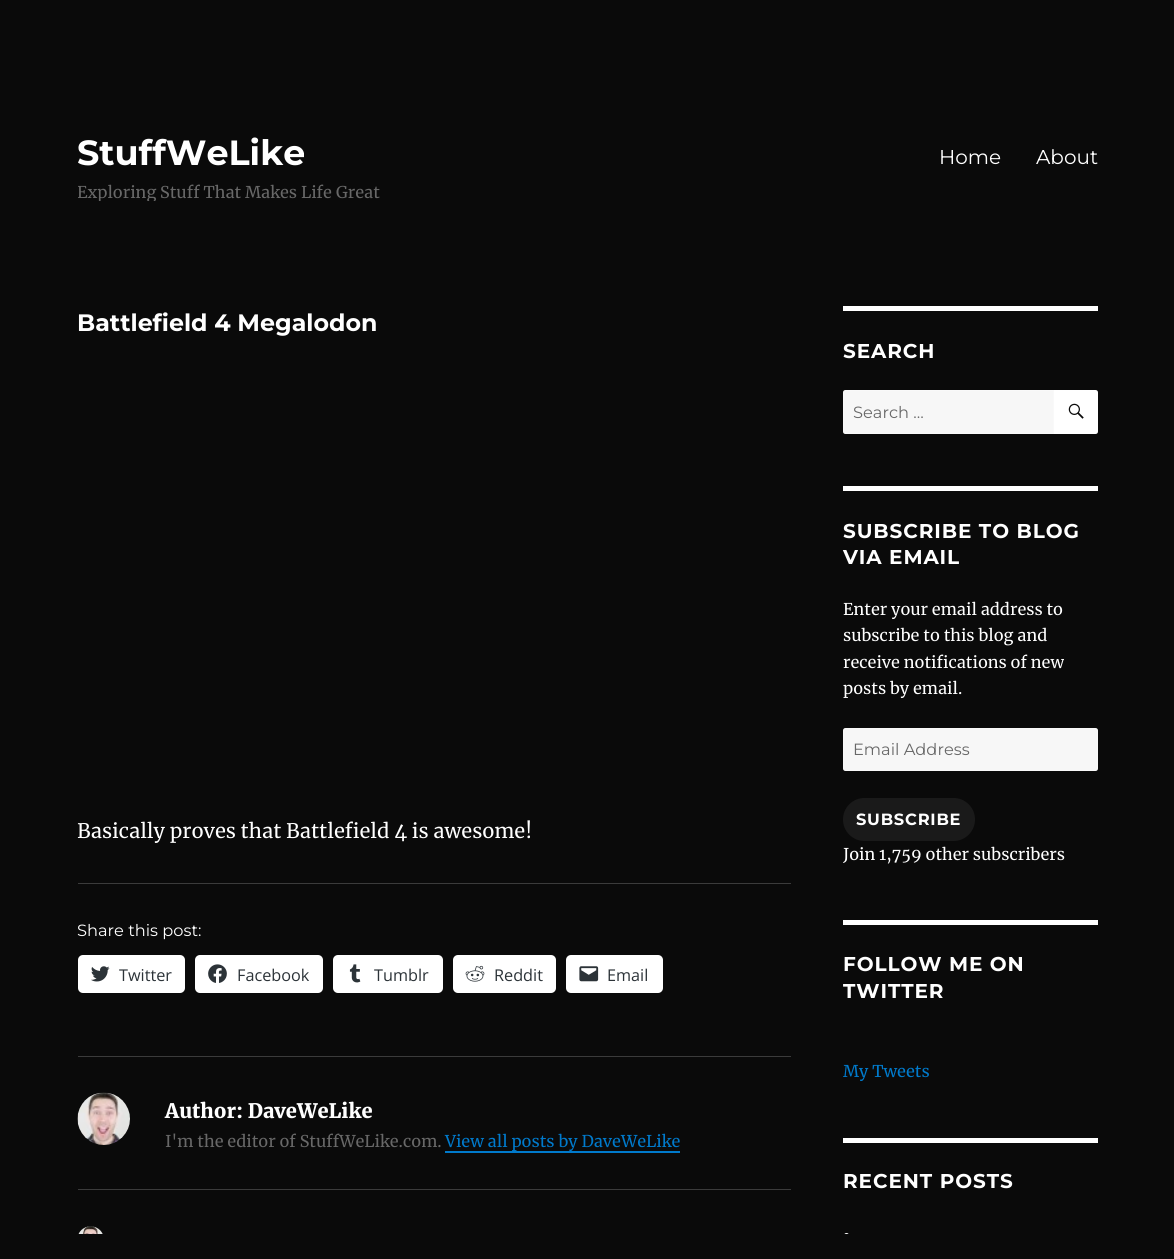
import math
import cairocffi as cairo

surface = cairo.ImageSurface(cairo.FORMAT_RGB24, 1174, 1259)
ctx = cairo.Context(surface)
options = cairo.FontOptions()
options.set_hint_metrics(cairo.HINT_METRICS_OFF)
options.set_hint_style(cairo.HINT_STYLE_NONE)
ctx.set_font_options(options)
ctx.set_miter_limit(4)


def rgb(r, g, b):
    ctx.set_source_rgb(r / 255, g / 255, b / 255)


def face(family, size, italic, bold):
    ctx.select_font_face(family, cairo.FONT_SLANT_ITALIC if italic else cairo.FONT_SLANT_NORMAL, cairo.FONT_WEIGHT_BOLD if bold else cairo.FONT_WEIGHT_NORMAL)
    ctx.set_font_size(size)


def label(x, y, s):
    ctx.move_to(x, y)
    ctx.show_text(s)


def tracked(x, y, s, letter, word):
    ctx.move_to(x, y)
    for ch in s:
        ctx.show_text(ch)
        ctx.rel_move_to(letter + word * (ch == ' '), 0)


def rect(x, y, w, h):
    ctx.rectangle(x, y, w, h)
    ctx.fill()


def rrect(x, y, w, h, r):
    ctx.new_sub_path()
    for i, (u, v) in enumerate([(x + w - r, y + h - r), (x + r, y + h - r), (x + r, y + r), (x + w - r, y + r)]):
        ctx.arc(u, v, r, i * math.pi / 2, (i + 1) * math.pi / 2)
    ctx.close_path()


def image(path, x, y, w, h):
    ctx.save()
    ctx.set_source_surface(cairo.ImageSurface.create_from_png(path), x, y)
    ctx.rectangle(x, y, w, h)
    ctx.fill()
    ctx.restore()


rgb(10, 10, 10)
ctx.paint()
face('Montserrat Thin', 35, 0, 0)
rgb(255, 255, 255)
label(77, 165, 'StuffWeLike')
ctx.save()
ctx.rectangle(78, 131, 302, 70)
ctx.clip()
face('Merriweather', 16.25, 0, 0)
rgb(104, 104, 104)
label(77, 198, 'Exploring Stuff That Makes Life Great')
ctx.restore()
face('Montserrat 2 Thin', 20, 0, 0)
label(939, 164, 'Home')
label(1036, 164, 'About')
face('Montserrat Thin', 23.75, 0, 0)
label(77, 331, 'Battlefield 4 Megalodon')
face('Merriweather', 20, 0, 0)
label(77, 838, 'Basically proves that Battlefield 4 is awesome!')
rgb(59, 59, 59)
rect(78, 883, 713, 1)
face('Montserrat 2 Thin', 16.25, 0, 0)
rgb(255, 255, 255)
label(77, 936, 'Share this post:')
rrect(78, 955, 107, 38, 5)
ctx.fill()
image('image0.png', 91, 966, 19, 16)
face('Open Sans', 16.25, 0, 0)
rgb(44, 51, 56)
label(119, 981, 'Twitter')
rgb(255, 255, 255)
rrect(195, 955, 128, 38, 5)
ctx.fill()
image('image1.png', 208, 964, 19, 19)
rgb(44, 51, 56)
label(237, 981, 'Facebook')
rgb(255, 255, 255)
rrect(333, 955, 110, 38, 5)
ctx.fill()
image('image2.png', 349, 964, 12, 19)
rgb(44, 51, 56)
label(374, 981, 'Tumblr')
rgb(255, 255, 255)
rrect(453, 955, 103, 38, 5)
ctx.fill()
image('image3.png', 465, 965, 20, 17)
rgb(44, 51, 56)
label(494, 981, 'Reddit')
rgb(255, 255, 255)
rrect(566, 955, 97, 38, 5)
ctx.fill()
image('image4.png', 579, 966, 20, 16)
rgb(44, 51, 56)
label(607, 981, 'Email')
rgb(59, 59, 59)
rect(78, 1056, 713, 1)
rect(78, 1189, 713, 1)
image('image5.png', 77, 1092, 53, 53)
face('Merriweather Black', 20, 0, 0)
rgb(255, 255, 255)
label(165, 1118, 'Author: DaveWeLike')
face('Merriweather', 16.25, 0, 0)
rgb(104, 104, 104)
label(165, 1147, 'I\'m the editor of StuffWeLike.com.')
rgb(0, 122, 204)
rect(445, 1151, 235, 2)
label(445, 1147, 'View all posts by DaveWeLike')
image('image6.png', 78, 1226, 25, 8)
rgb(255, 255, 255)
rect(843, 306, 255, 5)
face('Montserrat Thin', 20, 0, 0)
tracked(843, 358, 'SEARCH', 0.9, 0)
rgb(247, 247, 247)
ctx.new_path()
ctx.move_to(845.5, 390)
ctx.line_to(1054, 390)
ctx.line_to(1054, 434)
ctx.line_to(845.5, 434)
ctx.curve_to(844, 434, 843, 433, 843, 431.5)
ctx.line_to(843, 392.5)
ctx.curve_to(843, 391, 844, 390, 845.5, 390)
ctx.close_path()
ctx.fill()
ctx.new_path()
ctx.move_to(845.5, 390.5)
ctx.line_to(1053.5, 390.5)
ctx.line_to(1053.5, 433.5)
ctx.line_to(845.5, 433.5)
ctx.curve_to(844.5, 433.5, 843.5, 432.5, 843.5, 431.5)
ctx.line_to(843.5, 392.5)
ctx.curve_to(843.5, 391.5, 844.5, 390.5, 845.5, 390.5)
ctx.close_path()
ctx.set_source_rgba(1, 1, 1, 0.2)
ctx.set_line_width(1)
ctx.stroke()
face('Montserrat 2 Thin', 16.25, 0, 0)
rgb(104, 104, 104)
label(853, 418, 'Search …')
rgb(255, 255, 255)
ctx.new_path()
ctx.move_to(1054, 390)
ctx.line_to(1095.5, 390)
ctx.curve_to(1097, 390, 1098, 391, 1098, 392.5)
ctx.line_to(1098, 431.5)
ctx.curve_to(1098, 433, 1097, 434, 1095.5, 434)
ctx.line_to(1054, 434)
ctx.close_path()
ctx.fill()
image('image7.png', 1068, 403, 16, 16)
rect(843, 486, 255, 5)
face('Montserrat Thin', 20, 0, 0)
tracked(843, 538, 'SUBSCRIBE TO BLOG', 0.9, 0)
tracked(843, 564, 'VIA EMAIL', 0.9, 0)
face('Merriweather', 16.25, 0, 0)
label(843, 615, 'Enter your email address to')
label(843, 641, 'subscribe to this blog and')
label(843, 668, 'receive notifications of new')
label(843, 694, 'posts by email.')
rgb(247, 247, 247)
rrect(843, 728, 255, 43, 2.5)
ctx.fill()
rrect(843.5, 728.5, 254, 42, 2)
ctx.set_source_rgba(1, 1, 1, 0.2)
ctx.stroke()
face('Montserrat 2 Thin', 16.25, 0, 0)
rgb(104, 104, 104)
label(853, 755, 'Email Address')
rgb(26, 26, 26)
rrect(843, 798, 132, 43, 21.5)
ctx.fill()
face('Montserrat Thin', 16.25, 0, 0)
rgb(255, 255, 255)
tracked(856, 825, 'SUBSCRIBE', 0.75, 0)
face('Merriweather', 16.25, 0, 0)
label(843, 860, 'Join 1,759 other subscribers')
rect(843, 920, 255, 5)
face('Montserrat Thin', 20, 0, 0)
tracked(843, 971, 'FOLLOW ME ON', 0.9, 0)
tracked(843, 998, 'TWITTER', 0.9, 0)
face('Merriweather', 16.25, 0, 0)
rgb(0, 122, 204)
label(843, 1077, 'My Tweets')
rgb(255, 255, 255)
rect(843, 1138, 255, 5)
face('Montserrat Thin', 20, 0, 0)
tracked(843, 1188, 'RECENT POSTS', 0.9, 0)
ctx.new_path()
ctx.arc(846.5, 1235.5, 2.5, 0, 2 * math.pi)
ctx.fill()
rgb(10, 10, 10)
rect(844, 1234, 5, 4)
surface.write_to_png('render.png')
